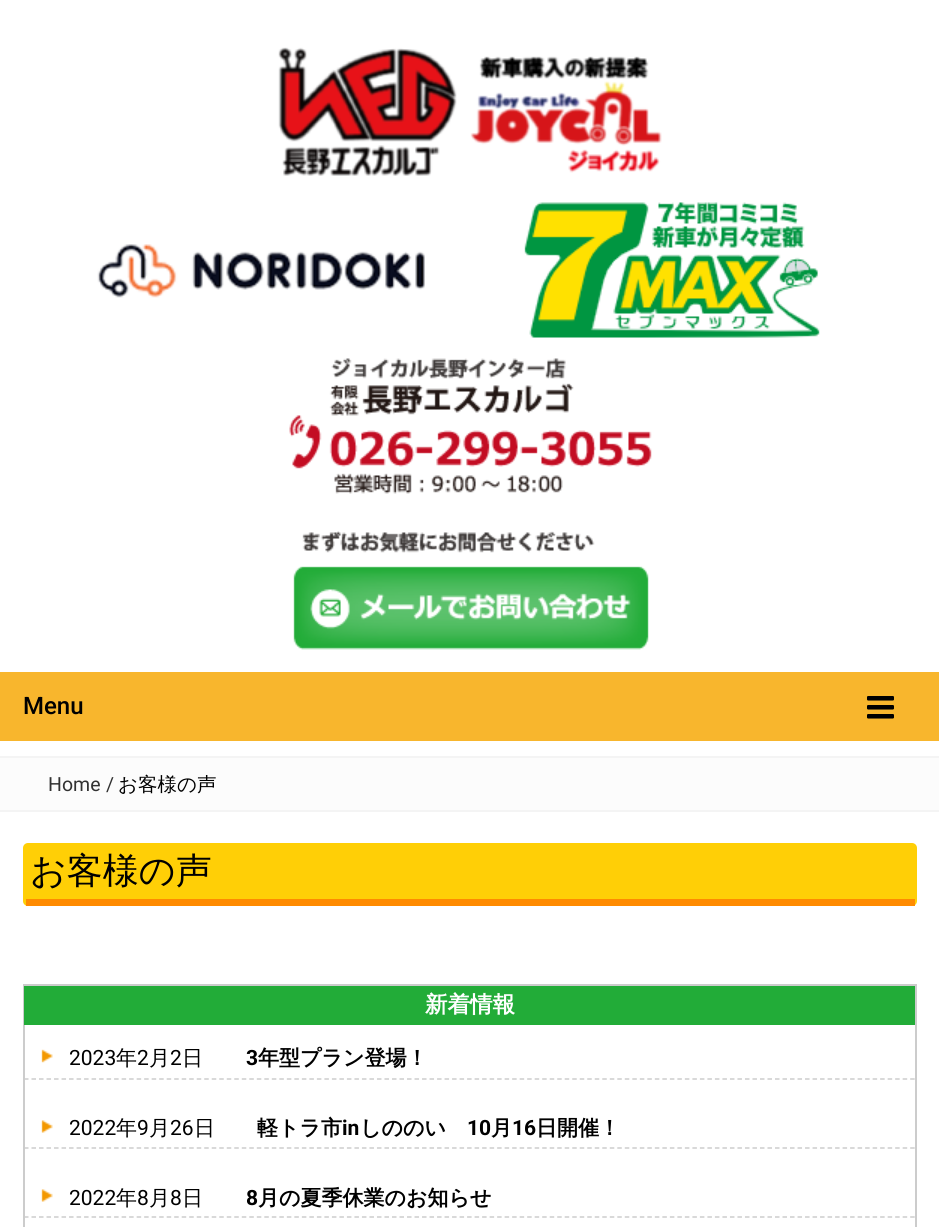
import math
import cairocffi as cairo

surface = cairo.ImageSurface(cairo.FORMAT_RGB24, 939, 1227)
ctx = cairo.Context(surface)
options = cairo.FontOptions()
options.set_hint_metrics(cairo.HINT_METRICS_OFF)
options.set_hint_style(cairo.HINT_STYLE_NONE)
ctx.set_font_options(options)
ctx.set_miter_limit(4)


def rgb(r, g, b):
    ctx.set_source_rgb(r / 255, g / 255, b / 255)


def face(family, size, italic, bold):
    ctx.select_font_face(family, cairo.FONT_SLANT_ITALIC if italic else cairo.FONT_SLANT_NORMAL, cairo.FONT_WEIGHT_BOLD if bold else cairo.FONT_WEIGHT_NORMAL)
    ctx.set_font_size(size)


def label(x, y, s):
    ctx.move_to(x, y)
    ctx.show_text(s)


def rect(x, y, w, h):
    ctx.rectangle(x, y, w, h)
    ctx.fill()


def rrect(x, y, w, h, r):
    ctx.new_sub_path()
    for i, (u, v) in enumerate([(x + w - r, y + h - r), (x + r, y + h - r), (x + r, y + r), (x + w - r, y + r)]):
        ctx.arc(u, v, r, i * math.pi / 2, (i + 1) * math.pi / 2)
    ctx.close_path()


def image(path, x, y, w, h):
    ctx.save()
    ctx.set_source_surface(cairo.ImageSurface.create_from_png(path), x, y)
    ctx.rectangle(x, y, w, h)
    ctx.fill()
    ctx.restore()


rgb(255, 255, 255)
ctx.paint()
image('image0.png', 278, 47, 384, 129)
image('image1.png', 97, 244, 328, 54)
image('image2.png', 524, 202, 296, 136)
image('image3.png', 289, 358, 363, 136)
image('image4.png', 293, 531, 356, 119)
rgb(248, 182, 45)
rect(0, 672, 939, 69)
face('Roboto Medium', 24, 0, 0)
rgb(0, 0, 0)
label(23, 714, 'Menu')
image('image5.png', 867, 696, 27, 23)
rgb(252, 252, 252)
rect(0, 758, 939, 52)
rgb(244, 244, 244)
rect(0, 756, 939, 2)
rect(0, 810, 939, 2)
face('Roboto', 19.5, 0, 0)
rgb(50, 50, 50)
label(48, 791, 'Home')
label(106, 791, '/')
face('WenQuanYi Zen Hei Medium', 19.5, 0, 0)
rgb(0, 0, 0)
label(118, 791, 'お客様の声')
rgb(255, 207, 6)
rrect(23, 843, 894, 63, 5)
ctx.fill()
rgb(255, 139, 0)
rect(26, 899, 889, 7)
face('WenQuanYi Zen Hei Medium', 36, 0, 0)
rgb(0, 0, 0)
label(30, 883, 'お客様の声')
ctx.rectangle(24, 985, 892, 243)
rgb(204, 204, 204)
ctx.stroke()
rgb(34, 172, 56)
rect(24, 986, 891, 39)
face('WenQuanYi Zen Hei', 22.5, 0, 1)
rgb(255, 255, 255)
label(425, 1012, '新着情報')
ctx.new_path()
ctx.move_to(24, 1079)
ctx.line_to(915, 1079)
rgb(204, 204, 204)
ctx.set_line_width(1.5)
ctx.set_dash([4.5, 3.01])
ctx.stroke()
image('image6.png', 41, 1049, 12, 14)
face('Roboto', 21, 0, 0)
rgb(0, 0, 0)
label(69, 1065, '2023')
face('WenQuanYi Zen Hei Medium', 21, 0, 0)
label(116, 1065, '年')
face('Roboto', 21, 0, 0)
label(137, 1065, '2')
face('WenQuanYi Zen Hei Medium', 21, 0, 0)
label(149, 1065, '月')
face('Roboto', 21, 0, 0)
label(170, 1065, '2')
face('WenQuanYi Zen Hei Medium', 21, 0, 0)
label(182, 1065, '日')
face('Roboto', 21, 0, 1)
label(246, 1065, '3')
face('WenQuanYi Zen Hei', 21, 0, 1)
label(258, 1065, '年型プラン登場！')
ctx.new_path()
ctx.move_to(24, 1148)
ctx.line_to(915, 1148)
rgb(204, 204, 204)
ctx.stroke()
image('image7.png', 41, 1120, 12, 13)
face('Roboto', 21, 0, 0)
rgb(0, 0, 0)
label(69, 1135, '2022')
face('WenQuanYi Zen Hei Medium', 21, 0, 0)
label(116, 1135, '年')
face('Roboto', 21, 0, 0)
label(137, 1135, '9')
face('WenQuanYi Zen Hei Medium', 21, 0, 0)
label(149, 1135, '月')
face('Roboto', 21, 0, 0)
label(170, 1135, '26')
face('WenQuanYi Zen Hei Medium', 21, 0, 0)
label(194, 1135, '日')
face('WenQuanYi Zen Hei', 21, 0, 1)
label(257, 1135, '軽トラ市')
face('Roboto', 21, 0, 1)
label(342, 1135, 'in')
face('WenQuanYi Zen Hei', 21, 0, 1)
label(360, 1135, 'しののい')
face('Roboto', 21, 0, 1)
label(467, 1135, '10')
face('WenQuanYi Zen Hei', 21, 0, 1)
label(491, 1135, '月')
face('Roboto', 21, 0, 1)
label(512, 1135, '16')
face('WenQuanYi Zen Hei', 21, 0, 1)
label(536, 1135, '日開催！')
ctx.new_path()
ctx.move_to(24, 1217)
ctx.line_to(915, 1217)
rgb(204, 204, 204)
ctx.stroke()
image('image7.png', 41, 1189, 12, 13)
face('Roboto', 21, 0, 0)
rgb(0, 0, 0)
label(69, 1205, '2022')
face('WenQuanYi Zen Hei Medium', 21, 0, 0)
label(116, 1205, '年')
face('Roboto', 21, 0, 0)
label(137, 1205, '8')
face('WenQuanYi Zen Hei Medium', 21, 0, 0)
label(149, 1205, '月')
face('Roboto', 21, 0, 0)
label(170, 1205, '8')
face('WenQuanYi Zen Hei Medium', 21, 0, 0)
label(182, 1205, '日')
face('Roboto', 21, 0, 1)
label(246, 1205, '8')
face('WenQuanYi Zen Hei', 21, 0, 1)
label(258, 1205, '月の夏季休業のお知らせ')
surface.write_to_png('render.png')
